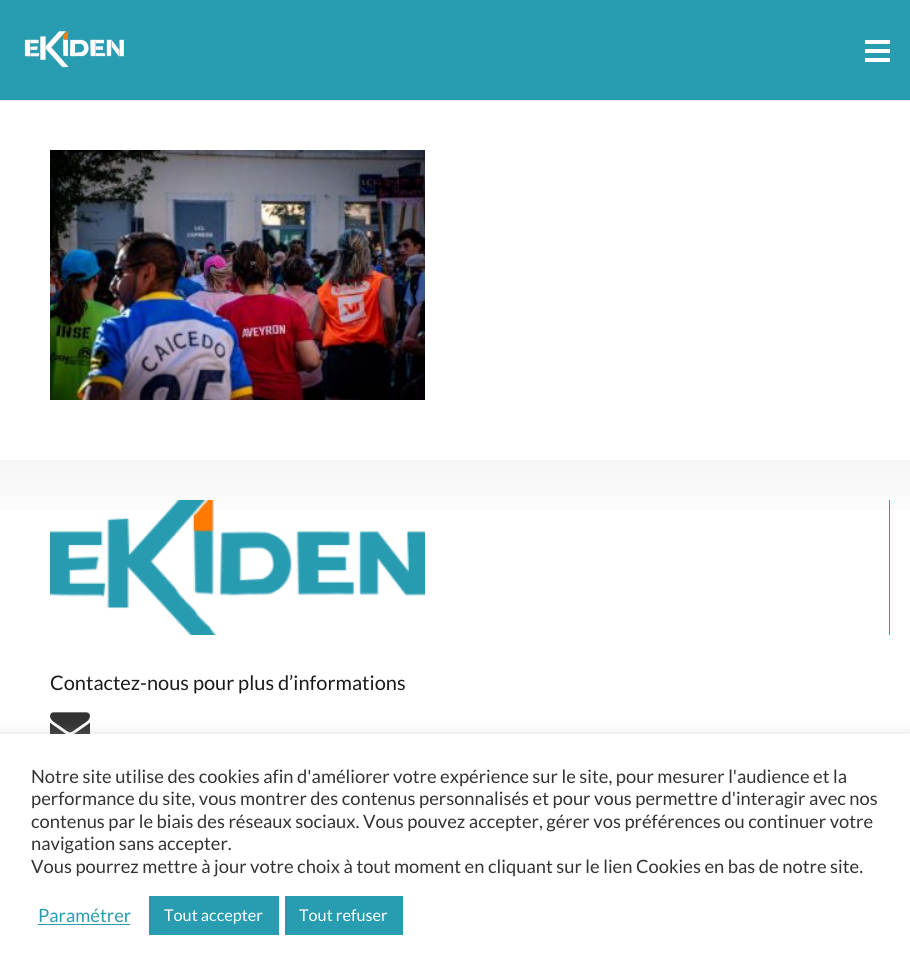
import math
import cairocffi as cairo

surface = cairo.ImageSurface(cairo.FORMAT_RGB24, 910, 972)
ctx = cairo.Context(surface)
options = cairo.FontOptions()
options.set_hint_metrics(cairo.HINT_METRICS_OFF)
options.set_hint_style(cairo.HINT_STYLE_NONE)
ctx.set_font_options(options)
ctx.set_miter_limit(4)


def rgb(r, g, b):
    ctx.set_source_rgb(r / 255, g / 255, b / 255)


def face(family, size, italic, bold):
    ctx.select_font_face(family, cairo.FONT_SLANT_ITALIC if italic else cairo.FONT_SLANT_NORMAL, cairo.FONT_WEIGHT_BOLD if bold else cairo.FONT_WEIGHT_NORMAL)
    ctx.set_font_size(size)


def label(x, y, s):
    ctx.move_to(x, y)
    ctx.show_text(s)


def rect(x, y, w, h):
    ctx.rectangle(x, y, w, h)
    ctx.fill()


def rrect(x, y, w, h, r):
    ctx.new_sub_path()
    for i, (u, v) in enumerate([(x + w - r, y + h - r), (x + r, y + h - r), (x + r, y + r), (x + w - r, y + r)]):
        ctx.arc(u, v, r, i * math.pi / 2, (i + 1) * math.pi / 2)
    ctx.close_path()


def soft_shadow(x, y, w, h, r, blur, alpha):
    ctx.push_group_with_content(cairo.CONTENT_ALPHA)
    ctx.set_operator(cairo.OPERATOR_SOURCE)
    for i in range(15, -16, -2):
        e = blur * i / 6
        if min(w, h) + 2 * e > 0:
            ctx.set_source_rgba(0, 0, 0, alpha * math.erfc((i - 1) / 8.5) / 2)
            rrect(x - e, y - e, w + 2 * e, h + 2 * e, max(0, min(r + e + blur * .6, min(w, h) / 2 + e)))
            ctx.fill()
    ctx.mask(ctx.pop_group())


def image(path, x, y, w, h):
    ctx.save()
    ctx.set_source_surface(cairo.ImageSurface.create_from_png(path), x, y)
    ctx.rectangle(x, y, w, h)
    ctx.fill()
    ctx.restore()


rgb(255, 255, 255)
ctx.paint()
rgb(235, 235, 235)
rect(0, 100, 910, 1)
rgb(40, 156, 177)
rect(0, 0, 910, 100)
image('image0.png', 24, 31, 100, 37)
rgb(255, 255, 255)
rect(865, 49, 25, 4)
rect(865, 40, 25, 4)
rect(865, 58, 25, 4)
image('image1.png', 50, 150, 375, 250)
gradient = cairo.LinearGradient(455, 460, 455, 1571)
gradient.add_color_stop_rgba(0, 0.961, 0.961, 0.961, 1)
gradient.add_color_stop_rgba(0.06, 1, 1, 1, 1)
ctx.set_source(gradient)
rect(0, 460, 910, 50)
rgb(40, 156, 177)
rect(889, 500, 1, 135)
image('image2.png', 50, 500, 375, 135)
face('Lato', 20, 0, 0)
rgb(26, 26, 26)
label(50, 690, 'Contactez-nous pour plus d’informations')
image('image3.png', 50, 712, 40, 22)
rgb(172, 171, 171)
soft_shadow(0, 733, 910, 238, 0, 6, 0.3)
rgb(255, 255, 255)
rect(0, 734, 910, 238)
face('Lato', 18.35, 0, 0)
rgb(51, 51, 51)
label(31, 783, 'Notre site utilise des cookies afin d\'améliorer votre expérience sur le site, pour mesurer l\'audience et la')
label(31, 805, 'performance du site, vous montrer des contenus personnalisés et pour vous permettre d\'interagir avec nos')
label(31, 828, 'contenus par le biais des réseaux sociaux. Vous pouvez accepter, gérer vos préférences ou continuer votre')
label(31, 850, 'navigation sans accepter.')
label(31, 873, 'Vous pourrez mettre à jour votre choix à tout moment en cliquant sur le lien Cookies en bas de notre site.')
rgb(40, 156, 177)
label(38, 922, 'Paramétrer')
rect(38, 924, 92, 1)
rect(149, 896, 130, 39)
face('Lato', 16.25, 0, 0)
rgb(255, 255, 255)
label(164, 921, 'Tout accepter')
rgb(40, 156, 177)
rect(285, 896, 118, 39)
rgb(255, 255, 255)
label(299, 921, 'Tout refuser')
surface.write_to_png('render.png')
